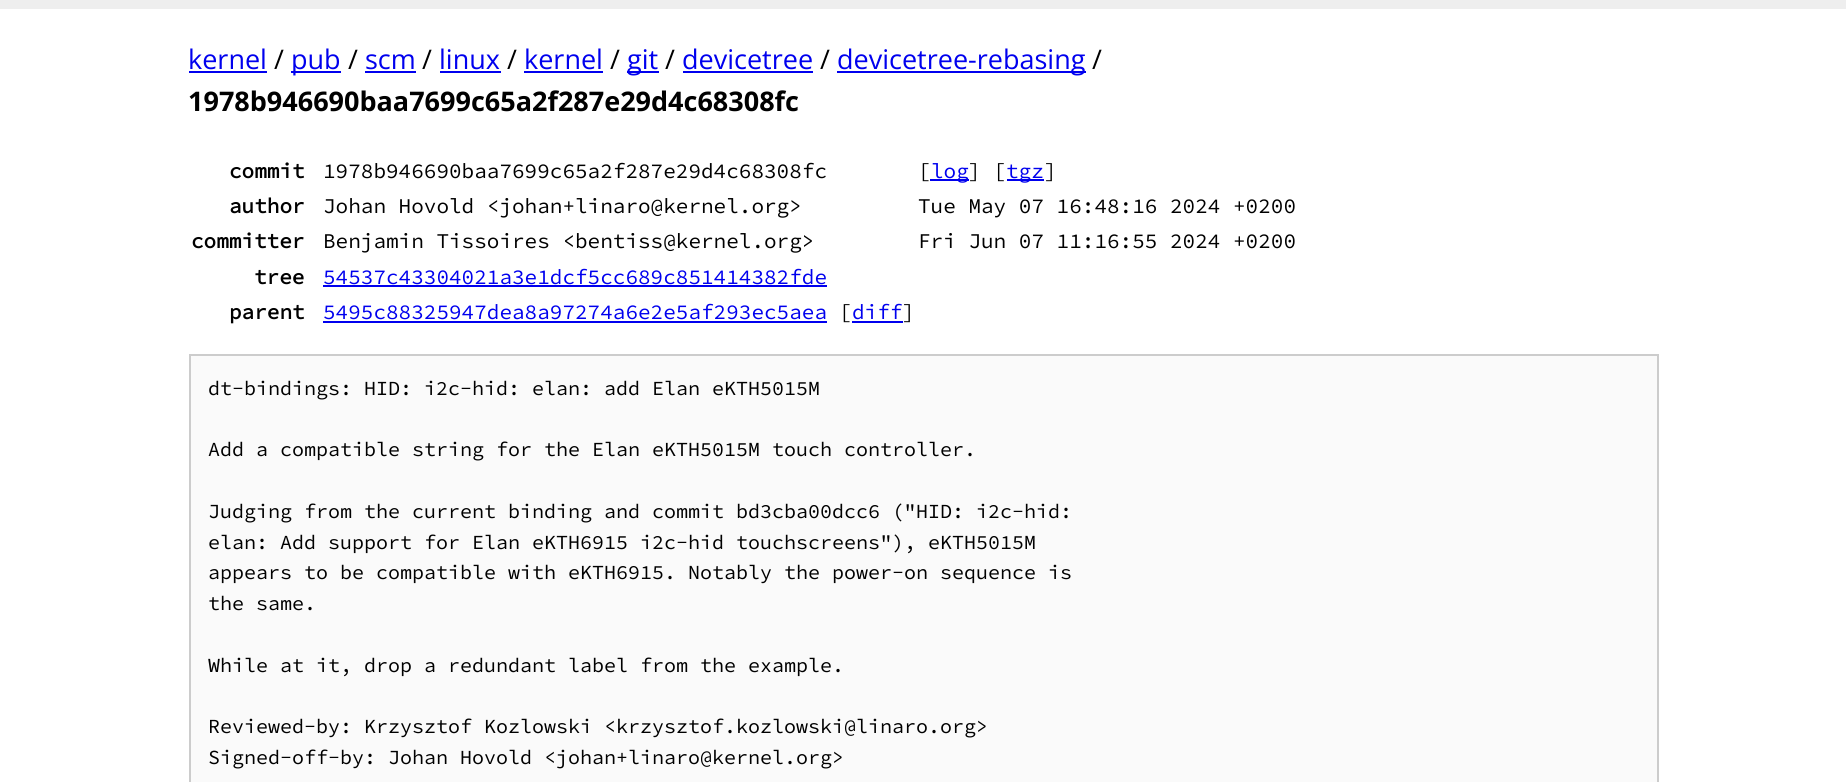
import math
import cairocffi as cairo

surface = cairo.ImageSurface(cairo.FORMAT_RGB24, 1846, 782)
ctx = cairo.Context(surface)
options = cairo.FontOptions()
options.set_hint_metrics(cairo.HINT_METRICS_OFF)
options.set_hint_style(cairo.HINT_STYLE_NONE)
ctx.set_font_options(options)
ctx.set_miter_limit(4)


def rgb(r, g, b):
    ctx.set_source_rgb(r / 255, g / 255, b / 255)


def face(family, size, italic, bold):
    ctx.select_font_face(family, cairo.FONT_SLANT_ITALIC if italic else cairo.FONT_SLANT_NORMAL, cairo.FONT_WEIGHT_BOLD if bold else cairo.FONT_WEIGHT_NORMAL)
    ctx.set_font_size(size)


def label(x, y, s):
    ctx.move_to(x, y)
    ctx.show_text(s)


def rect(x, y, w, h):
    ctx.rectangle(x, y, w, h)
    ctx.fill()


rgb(255, 255, 255)
ctx.paint()
rgb(238, 238, 238)
rect(0, 0, 1846, 9)
face('Open Sans', 27, 0, 0)
rgb(0, 0, 238)
label(188, 69, 'kernel')
rect(189, 71, 78, 2)
rgb(0, 0, 0)
label(274, 69, '/')
rgb(0, 0, 238)
rect(291, 71, 50, 2)
label(291, 69, 'pub')
rgb(0, 0, 0)
label(348, 69, '/')
rgb(0, 0, 238)
label(365, 69, 'scm')
rect(365, 71, 51, 2)
rgb(0, 0, 0)
label(422, 69, '/')
rgb(0, 0, 238)
label(439, 69, 'linux')
rect(440, 71, 61, 2)
rgb(0, 0, 0)
label(507, 69, '/')
rgb(0, 0, 238)
label(524, 69, 'kernel')
rect(524, 71, 79, 2)
rgb(0, 0, 0)
label(610, 69, '/')
rgb(0, 0, 238)
rect(627, 71, 32, 2)
label(627, 69, 'git')
rgb(0, 0, 0)
label(665, 69, '/')
rgb(0, 0, 238)
label(682, 69, 'devicetree')
rect(683, 71, 130, 2)
rgb(0, 0, 0)
label(820, 69, '/')
rgb(0, 0, 238)
rect(837, 71, 249, 2)
label(837, 69, 'devicetree-rebasing')
rgb(0, 0, 0)
label(1092, 69, '/')
face('Open Sans', 27, 0, 1)
label(188, 111, '1978b946690baa7699c65a2f287e29d4c68308fc')
face('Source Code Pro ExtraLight', 21, 0, 1)
label(229, 178, 'commit')
face('Source Code Pro ExtraLight ExtraLight', 21, 0, 0)
label(323, 178, '1978b946690baa7699c65a2f287e29d4c68308fc')
label(918, 178, '[')
rgb(0, 0, 238)
rect(930, 179, 39, 2)
label(931, 178, 'log')
rgb(0, 0, 0)
label(968, 178, '] [')
rgb(0, 0, 238)
rect(1007, 179, 37, 2)
label(1006, 178, 'tgz')
rgb(0, 0, 0)
label(1044, 178, ']')
face('Source Code Pro ExtraLight', 21, 0, 1)
label(229, 213, 'author')
face('Source Code Pro ExtraLight ExtraLight', 21, 0, 0)
label(323, 213, 'Johan Hovold <johan+linaro@kernel.org>')
label(918, 213, 'Tue May 07 16:48:16 2024 +0200')
face('Source Code Pro ExtraLight', 21, 0, 1)
label(191, 248, 'committer')
face('Source Code Pro ExtraLight ExtraLight', 21, 0, 0)
label(323, 248, 'Benjamin Tissoires <bentiss@kernel.org>')
label(918, 248, 'Fri Jun 07 11:16:55 2024 +0200')
face('Source Code Pro ExtraLight', 21, 0, 1)
label(254, 284, 'tree')
face('Source Code Pro ExtraLight ExtraLight', 21, 0, 0)
rgb(0, 0, 238)
label(323, 284, '54537c43304021a3e1dcf5cc689c851414382fde')
rect(323, 285, 504, 2)
face('Source Code Pro ExtraLight', 21, 0, 1)
rgb(0, 0, 0)
label(229, 319, 'parent')
face('Source Code Pro ExtraLight ExtraLight', 21, 0, 0)
rgb(0, 0, 238)
label(323, 319, '5495c88325947dea8a97274a6e2e5af293ec5aea')
rect(323, 321, 504, 2)
rgb(0, 0, 0)
label(839, 319, '[')
rgb(0, 0, 238)
label(852, 319, 'diff')
rgb(0, 0, 0)
label(902, 319, ']')
rgb(0, 0, 238)
rect(852, 321, 51, 2)
rgb(250, 250, 250)
ctx.rectangle(190, 355, 1468, 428)
ctx.fill_preserve()
rgb(204, 204, 204)
ctx.stroke()
face('Source Code Pro ExtraLight ExtraLight', 20, 0, 0)
rgb(0, 0, 0)
label(208, 395, 'dt-bindings: HID: i2c-hid: elan: add Elan eKTH5015M')
label(208, 456, 'Add a compatible string for the Elan eKTH5015M touch controller.')
label(208, 518, 'Judging from the current binding and commit bd3cba00dcc6 ("HID: i2c-hid:')
label(208, 549, 'elan: Add support for Elan eKTH6915 i2c-hid touchscreens"), eKTH5015M')
label(208, 579, 'appears to be compatible with eKTH6915. Notably the power-on sequence is')
label(208, 610, 'the same.')
label(208, 672, 'While at it, drop a redundant label from the example.')
label(208, 733, 'Reviewed-by: Krzysztof Kozlowski <krzysztof.kozlowski@linaro.org>')
label(208, 764, 'Signed-off-by: Johan Hovold <johan+linaro@kernel.org>')
surface.write_to_png('render.png')
